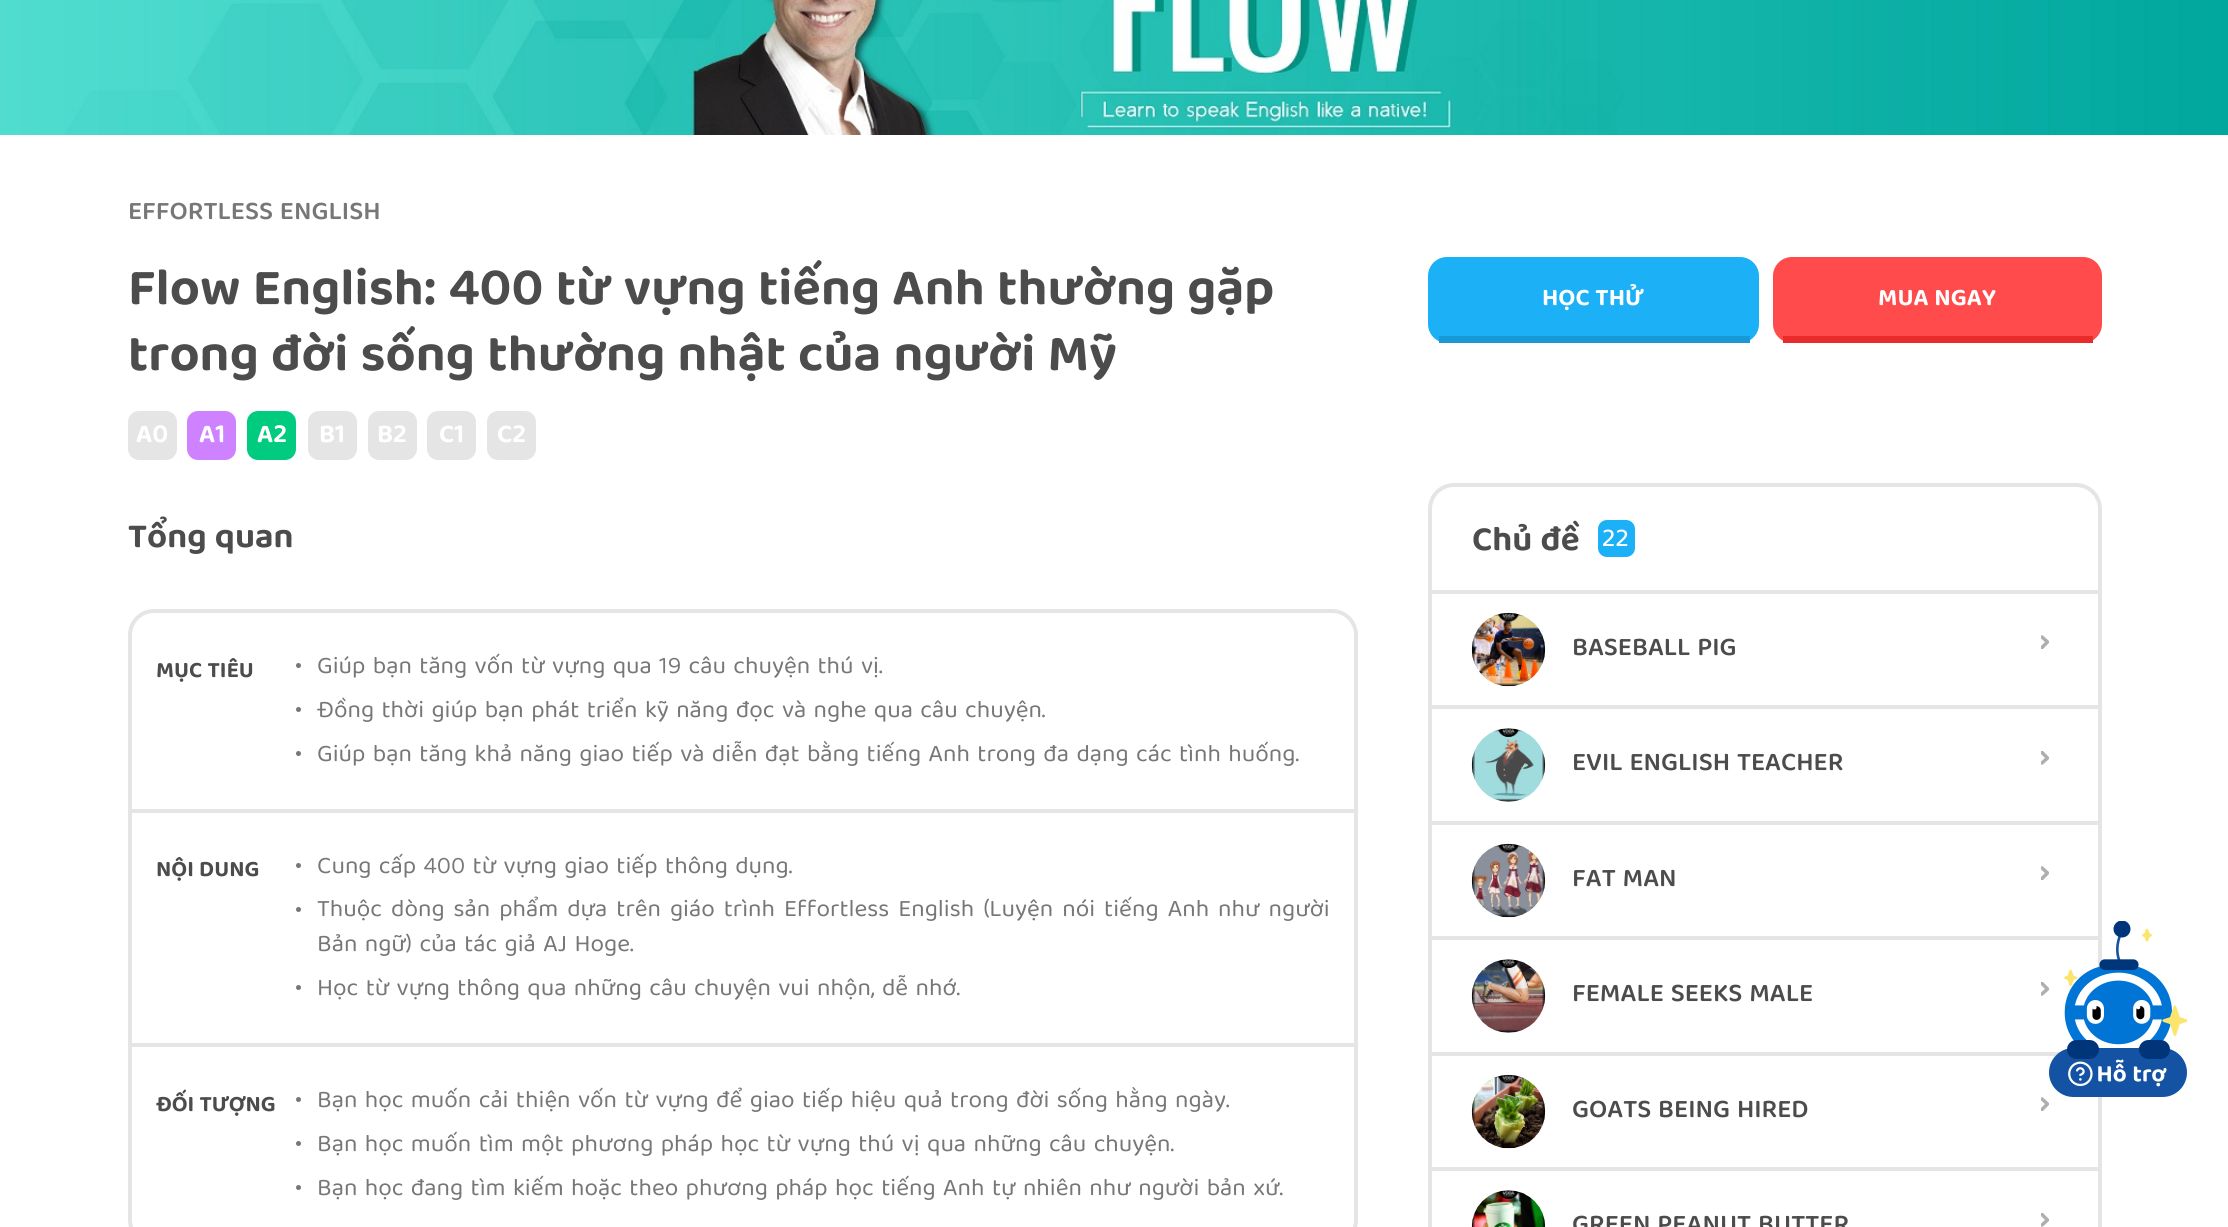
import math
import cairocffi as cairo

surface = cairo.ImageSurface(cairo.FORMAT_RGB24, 2228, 1227)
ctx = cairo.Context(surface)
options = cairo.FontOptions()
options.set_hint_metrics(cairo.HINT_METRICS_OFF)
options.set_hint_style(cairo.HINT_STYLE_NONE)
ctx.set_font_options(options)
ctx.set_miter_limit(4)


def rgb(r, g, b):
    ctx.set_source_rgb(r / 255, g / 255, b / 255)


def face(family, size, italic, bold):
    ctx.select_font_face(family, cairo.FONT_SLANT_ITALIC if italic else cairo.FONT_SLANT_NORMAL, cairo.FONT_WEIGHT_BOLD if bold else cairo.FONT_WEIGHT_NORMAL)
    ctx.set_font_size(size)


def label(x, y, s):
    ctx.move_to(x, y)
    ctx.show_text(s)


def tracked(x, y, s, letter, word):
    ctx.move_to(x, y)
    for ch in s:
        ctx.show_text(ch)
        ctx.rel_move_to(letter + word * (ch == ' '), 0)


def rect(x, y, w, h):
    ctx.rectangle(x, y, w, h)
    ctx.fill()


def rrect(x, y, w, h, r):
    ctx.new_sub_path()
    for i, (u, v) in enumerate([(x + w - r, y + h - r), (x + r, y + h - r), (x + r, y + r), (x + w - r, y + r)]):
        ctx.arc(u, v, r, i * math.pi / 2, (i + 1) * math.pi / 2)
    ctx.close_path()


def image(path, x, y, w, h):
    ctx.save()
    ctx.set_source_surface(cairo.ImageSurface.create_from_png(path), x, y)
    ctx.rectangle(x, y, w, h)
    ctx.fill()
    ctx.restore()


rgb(255, 255, 255)
ctx.paint()
image('image0.png', 0, 0, 2228, 135)
face('Baloo Tamma 2 SemiBold', 26.25, 0, 0)
rgb(119, 119, 119)
label(128, 219, 'EFFORTLESS ENGLISH')
face('Baloo Tamma 2', 52.5, 0, 1)
rgb(76, 76, 76)
label(128, 304, 'Flow English: 400 từ vựng tiếng Anh thường gặp')
label(128, 370, 'trong đời sống thường nhật của người Mỹ')
rgb(229, 229, 229)
rrect(128, 411, 49, 49, 11)
ctx.fill()
face('Baloo Tamma 2', 26.25, 0, 1)
rgb(255, 255, 255)
label(136, 442, 'A0')
rgb(206, 130, 255)
rrect(187, 411, 49, 49, 11)
ctx.fill()
rgb(255, 255, 255)
label(199, 442, 'A1')
rgb(0, 203, 126)
rrect(247, 411, 49, 49, 11)
ctx.fill()
rgb(255, 255, 255)
label(257, 442, 'A2')
rgb(229, 229, 229)
rrect(308, 411, 49, 49, 11)
ctx.fill()
rgb(255, 255, 255)
label(319, 442, 'B1')
rgb(229, 229, 229)
rrect(368, 411, 49, 49, 11)
ctx.fill()
rgb(255, 255, 255)
label(377, 442, 'B2')
rgb(229, 229, 229)
rrect(427, 411, 49, 49, 11)
ctx.fill()
rgb(255, 255, 255)
label(439, 442, 'C1')
rgb(229, 229, 229)
rrect(487, 411, 49, 49, 11)
ctx.fill()
rgb(255, 255, 255)
label(497, 442, 'C2')
face('Baloo Tamma 2', 35, 0, 1)
rgb(76, 76, 76)
label(128, 547, 'Tổng quan')
rrect(130, 611, 1226, 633, 24)
rgb(229, 229, 229)
ctx.set_line_width(4)
ctx.stroke()
rect(131, 809, 1224, 4)
face('Baloo Tamma 2', 22.75, 0, 1)
rgb(76, 76, 76)
label(156, 677, 'MỤC TIÊU')
rgb(119, 119, 119)
ctx.new_path()
ctx.arc(298.5, 665.5, 2.5, 0, 2 * math.pi)
ctx.fill()
face('Baloo Tamma 2', 24.5, 0, 0)
label(317, 673, 'Giúp bạn tăng vốn từ vựng qua 19 câu chuyện thú vị.')
ctx.new_path()
ctx.arc(298.5, 709.5, 2.5, 0, 2 * math.pi)
ctx.fill()
label(317, 717, 'Đồng thời giúp bạn phát triển kỹ năng đọc và nghe qua câu chuyện.')
ctx.new_path()
ctx.arc(298.5, 753.5, 2.5, 0, 2 * math.pi)
ctx.fill()
label(317, 761, 'Giúp bạn tăng khả năng giao tiếp và diễn đạt bằng tiếng Anh trong đa dạng các tình huống.')
rgb(229, 229, 229)
rect(131, 1043, 1224, 4)
face('Baloo Tamma 2', 22.75, 0, 1)
rgb(76, 76, 76)
label(156, 876, 'NỘI DUNG')
rgb(119, 119, 119)
ctx.new_path()
ctx.arc(298.5, 865.5, 2.5, 0, 2 * math.pi)
ctx.fill()
face('Baloo Tamma 2', 24.5, 0, 0)
label(317, 873, 'Cung cấp 400 từ vựng giao tiếp thông dụng.')
ctx.new_path()
ctx.arc(298.5, 909.5, 2.5, 0, 2 * math.pi)
ctx.fill()
tracked(317, 916, 'Thuộc dòng sản phẩm dựa trên giáo trình Effortless English (Luyện nói tiếng Anh như người', 0, 1.6)
label(317, 951, 'Bản ngữ) của tác giả AJ Hoge.')
ctx.new_path()
ctx.arc(298.5, 987.5, 2.5, 0, 2 * math.pi)
ctx.fill()
label(317, 995, 'Học từ vựng thông qua những câu chuyện vui nhộn, dễ nhớ.')
face('Baloo Tamma 2', 22.75, 0, 1)
rgb(76, 76, 76)
label(156, 1111, 'ĐỐI TƯỢNG')
rgb(119, 119, 119)
ctx.new_path()
ctx.arc(298.5, 1099.5, 2.5, 0, 2 * math.pi)
ctx.fill()
face('Baloo Tamma 2', 24.5, 0, 0)
label(317, 1107, 'Bạn học muốn cải thiện vốn từ vựng để giao tiếp hiệu quả trong đời sống hằng ngày.')
ctx.new_path()
ctx.arc(298.5, 1143.5, 2.5, 0, 2 * math.pi)
ctx.fill()
label(317, 1151, 'Bạn học muốn tìm một phương pháp học từ vựng thú vị qua những câu chuyện.')
ctx.new_path()
ctx.arc(298.5, 1187.5, 2.5, 0, 2 * math.pi)
ctx.fill()
label(317, 1195, 'Bạn học đang tìm kiếm hoặc theo phương pháp học tiếng Anh tự nhiên như người bản xứ.')
rgb(28, 176, 246)
rrect(1428, 257, 331, 86, 19)
ctx.fill()
rgb(24, 153, 214)
rect(1439, 336, 311, 7)
face('Baloo Tamma 2', 24.5, 0, 1)
rgb(255, 255, 255)
label(1542, 305, 'HỌC THỬ')
rgb(255, 75, 75)
rrect(1773, 257, 329, 86, 19)
ctx.fill()
rgb(234, 43, 43)
rect(1783, 336, 310, 7)
rgb(255, 255, 255)
label(1878, 305, 'MUA NGAY')
rrect(1430, 485, 670, 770, 24)
rgb(229, 229, 229)
ctx.stroke()
face('Baloo Tamma 2', 35, 0, 1)
rgb(76, 76, 76)
label(1472, 550, 'Chủ đề')
rgb(28, 176, 246)
rrect(1598, 520, 37, 37, 9)
ctx.fill()
face('Baloo Tamma 2 Medium', 26.25, 0, 0)
rgb(255, 255, 255)
label(1602, 546, '22')
rgb(229, 229, 229)
rect(1432, 590, 666, 4)
image('image1.png', 1471, 612, 75, 75)
face('Baloo Tamma 2 SemiBold', 26.25, 0, 0)
rgb(76, 76, 76)
label(1572, 655, 'BASEBALL PIG')
ctx.save()
ctx.rectangle(2041, 635, 8, 14)
ctx.clip()
ctx.new_path()
ctx.move_to(2042, 647.5)
ctx.line_to(2047.5, 642)
ctx.line_to(2042, 637)
rgb(175, 175, 175)
ctx.set_line_width(3.5)
ctx.set_line_cap(cairo.LINE_CAP_ROUND)
ctx.set_line_join(cairo.LINE_JOIN_ROUND)
ctx.stroke()
ctx.restore()
rgb(229, 229, 229)
rect(1432, 705, 666, 4)
image('image2.png', 1471, 728, 75, 74)
rgb(76, 76, 76)
label(1572, 770, 'EVIL ENGLISH TEACHER')
ctx.save()
ctx.rectangle(2041, 751, 8, 14)
ctx.clip()
ctx.new_path()
ctx.move_to(2042, 763)
ctx.line_to(2047.5, 758)
ctx.line_to(2042, 752.5)
rgb(175, 175, 175)
ctx.set_line_width(3.5)
ctx.set_line_cap(cairo.LINE_CAP_ROUND)
ctx.set_line_join(cairo.LINE_JOIN_ROUND)
ctx.stroke()
ctx.restore()
rgb(229, 229, 229)
rect(1432, 821, 666, 4)
image('image3.png', 1471, 843, 75, 75)
rgb(76, 76, 76)
label(1572, 886, 'FAT MAN')
ctx.save()
ctx.rectangle(2041, 866, 8, 14)
ctx.clip()
ctx.new_path()
ctx.move_to(2042, 878.5)
ctx.line_to(2047.5, 873)
ctx.line_to(2042, 868)
rgb(175, 175, 175)
ctx.set_line_width(3.5)
ctx.set_line_cap(cairo.LINE_CAP_ROUND)
ctx.set_line_join(cairo.LINE_JOIN_ROUND)
ctx.stroke()
ctx.restore()
rgb(229, 229, 229)
rect(1432, 936, 666, 4)
image('image4.png', 1471, 959, 75, 74)
rgb(76, 76, 76)
label(1572, 1001, 'FEMALE SEEKS MALE')
ctx.save()
ctx.rectangle(2041, 982, 8, 14)
ctx.clip()
ctx.new_path()
ctx.move_to(2042, 994)
ctx.line_to(2047.5, 989)
ctx.line_to(2042, 983.5)
rgb(175, 175, 175)
ctx.set_line_width(3.5)
ctx.set_line_cap(cairo.LINE_CAP_ROUND)
ctx.set_line_join(cairo.LINE_JOIN_ROUND)
ctx.stroke()
ctx.restore()
rgb(229, 229, 229)
rect(1432, 1052, 628, 4)
image('image5.png', 1471, 1074, 75, 75)
rgb(76, 76, 76)
label(1572, 1117, 'GOATS BEING HIRED')
ctx.save()
ctx.rectangle(2041, 1097, 8, 14)
ctx.clip()
ctx.new_path()
ctx.move_to(2042, 1109.5)
ctx.line_to(2047.5, 1104)
ctx.line_to(2042, 1099)
rgb(175, 175, 175)
ctx.set_line_width(3.5)
ctx.set_line_cap(cairo.LINE_CAP_ROUND)
ctx.set_line_join(cairo.LINE_JOIN_ROUND)
ctx.stroke()
ctx.restore()
rgb(229, 229, 229)
rect(1432, 1167, 666, 4)
image('image6.png', 1471, 1190, 75, 37)
rgb(76, 76, 76)
label(1572, 1232, 'GREEN PEANUT BUTTER')
ctx.save()
ctx.rectangle(2041, 1213, 8, 14)
ctx.clip()
ctx.new_path()
ctx.move_to(2042, 1225)
ctx.line_to(2047.5, 1220)
ctx.line_to(2042, 1214.5)
rgb(175, 175, 175)
ctx.set_line_width(3.5)
ctx.set_line_cap(cairo.LINE_CAP_ROUND)
ctx.set_line_join(cairo.LINE_JOIN_ROUND)
ctx.stroke()
ctx.restore()
image('image7.png', 2049, 921, 139, 176)
surface.write_to_png('render.png')
